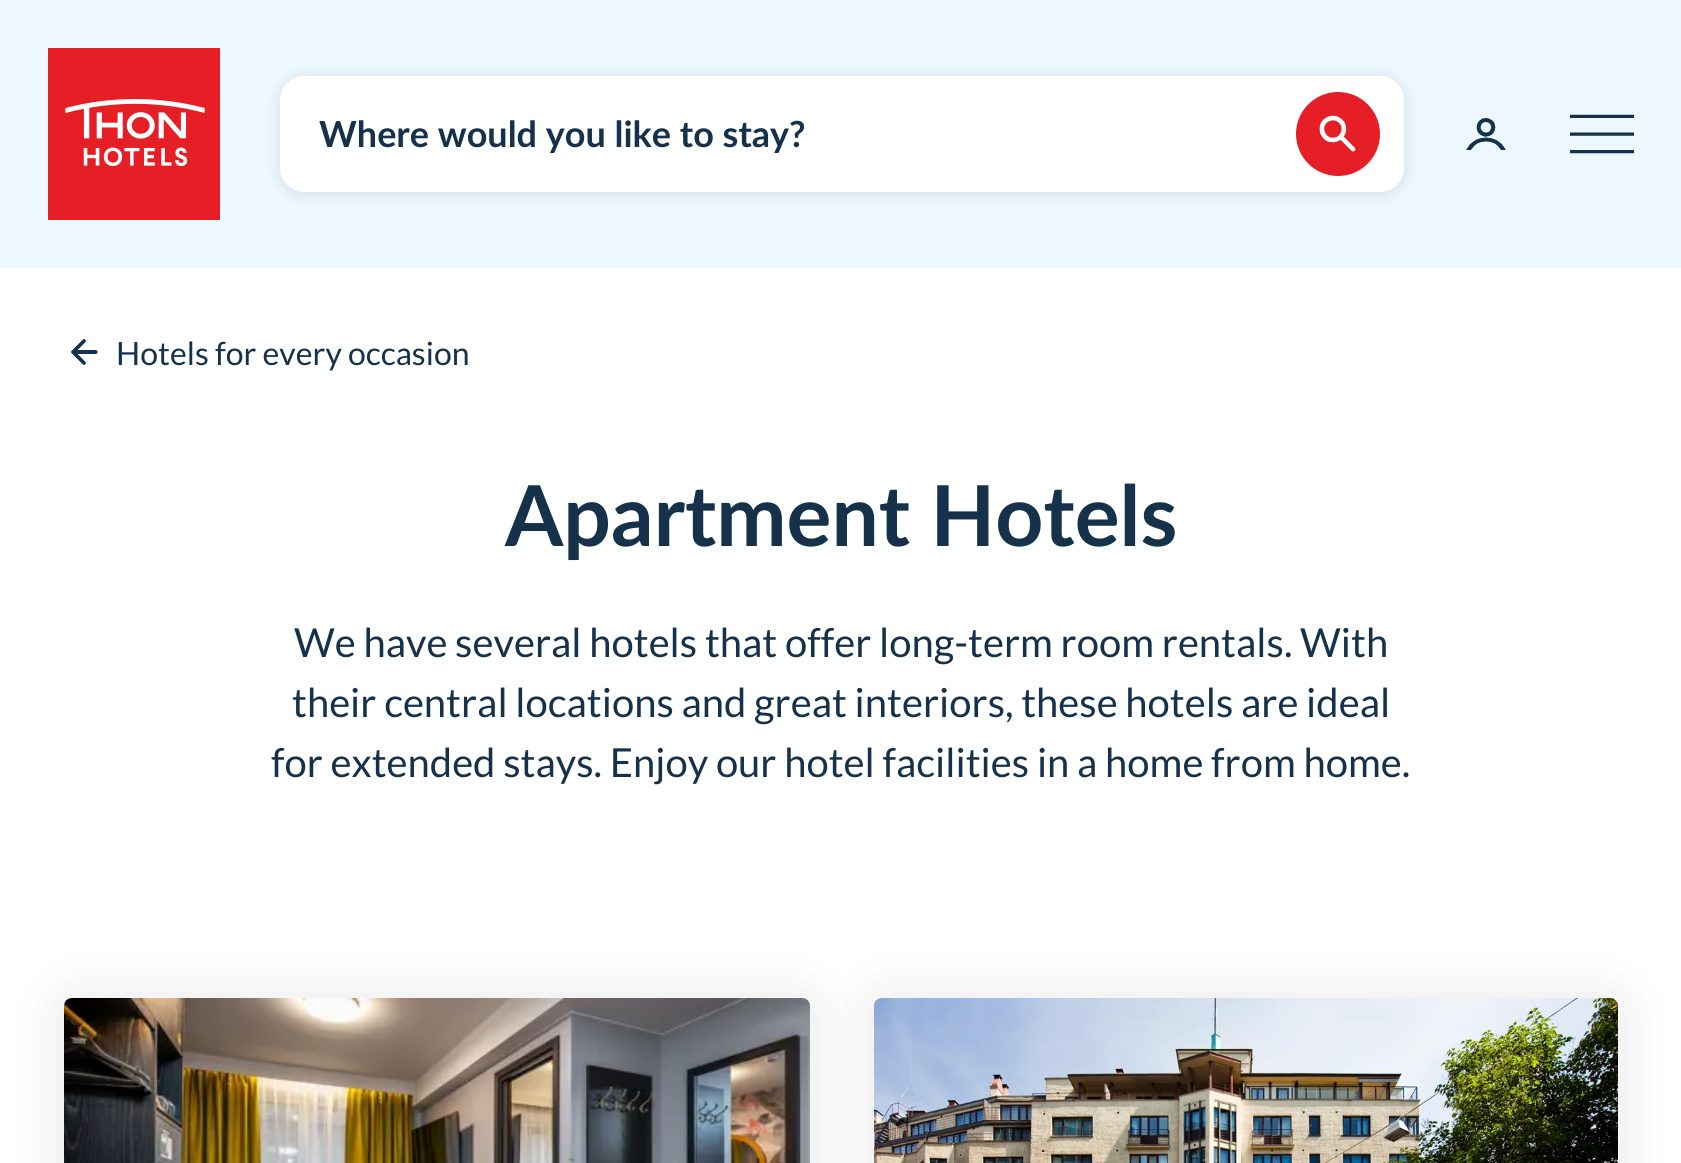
import math
import cairocffi as cairo

surface = cairo.ImageSurface(cairo.FORMAT_RGB24, 1681, 1163)
ctx = cairo.Context(surface)
options = cairo.FontOptions()
options.set_hint_metrics(cairo.HINT_METRICS_OFF)
options.set_hint_style(cairo.HINT_STYLE_NONE)
ctx.set_font_options(options)
ctx.set_miter_limit(4)


def rgb(r, g, b):
    ctx.set_source_rgb(r / 255, g / 255, b / 255)


def face(family, size, italic, bold):
    ctx.select_font_face(family, cairo.FONT_SLANT_ITALIC if italic else cairo.FONT_SLANT_NORMAL, cairo.FONT_WEIGHT_BOLD if bold else cairo.FONT_WEIGHT_NORMAL)
    ctx.set_font_size(size)


def label(x, y, s):
    ctx.move_to(x, y)
    ctx.show_text(s)


def rect(x, y, w, h):
    ctx.rectangle(x, y, w, h)
    ctx.fill()


def rrect(x, y, w, h, r):
    ctx.new_sub_path()
    for i, (u, v) in enumerate([(x + w - r, y + h - r), (x + r, y + h - r), (x + r, y + r), (x + w - r, y + r)]):
        ctx.arc(u, v, r, i * math.pi / 2, (i + 1) * math.pi / 2)
    ctx.close_path()


def soft_shadow(x, y, w, h, r, blur, alpha):
    ctx.push_group_with_content(cairo.CONTENT_ALPHA)
    ctx.set_operator(cairo.OPERATOR_SOURCE)
    for i in range(15, -16, -2):
        e = blur * i / 6
        if min(w, h) + 2 * e > 0:
            ctx.set_source_rgba(0, 0, 0, alpha * math.erfc((i - 1) / 8.5) / 2)
            rrect(x - e, y - e, w + 2 * e, h + 2 * e, max(0, min(r + e + blur * .6, min(w, h) / 2 + e)))
            ctx.fill()
    ctx.mask(ctx.pop_group())


def image(path, x, y, w, h):
    ctx.save()
    ctx.set_source_surface(cairo.ImageSurface.create_from_png(path), x, y)
    ctx.rectangle(x, y, w, h)
    ctx.fill()
    ctx.restore()


rgb(255, 255, 255)
ctx.paint()
rgb(236, 247, 254)
rect(0, 0, 1681, 268)
image('image0.png', 48, 48, 172, 172)
rgb(0, 0, 0)
soft_shadow(276, 74, 1132, 124, 28, 6, 0.07)
rgb(255, 255, 255)
rrect(280, 76, 1124, 116, 24)
ctx.fill()
face('Lato', 36, 0, 1)
rgb(21, 50, 74)
label(319, 147, 'Where would you like to stay?')
rgb(230, 30, 38)
ctx.new_path()
ctx.arc(1338, 134, 42, 0, 2 * math.pi)
ctx.fill()
image('image1.png', 1319, 115, 37, 37)
image('image2.png', 1466, 118, 40, 32)
image('image3.png', 1570, 114, 64, 40)
image('image4.png', 71, 339, 27, 26)
face('Lato', 32, 0, 0)
rgb(21, 50, 74)
label(116, 365, 'Hotels for every occasion')
face('Lato', 84, 0, 1)
label(505, 546, 'Apartment Hotels')
face('Lato', 40, 0, 0)
label(294, 657, 'We have several hotels that offer long-term room rentals. With')
label(292, 717, 'their central locations and great interiors, these hotels are ideal')
label(271, 777, 'for extended stays. Enjoy our hotel facilities in a home from home.')
rgb(0, 0, 0)
soft_shadow(52, 988, 770, 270, 20, 25, 0.07)
image('image5.png', 64, 998, 746, 165)
soft_shadow(862, 988, 768, 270, 20, 25, 0.07)
image('image6.png', 874, 998, 744, 165)
surface.write_to_png('render.png')
